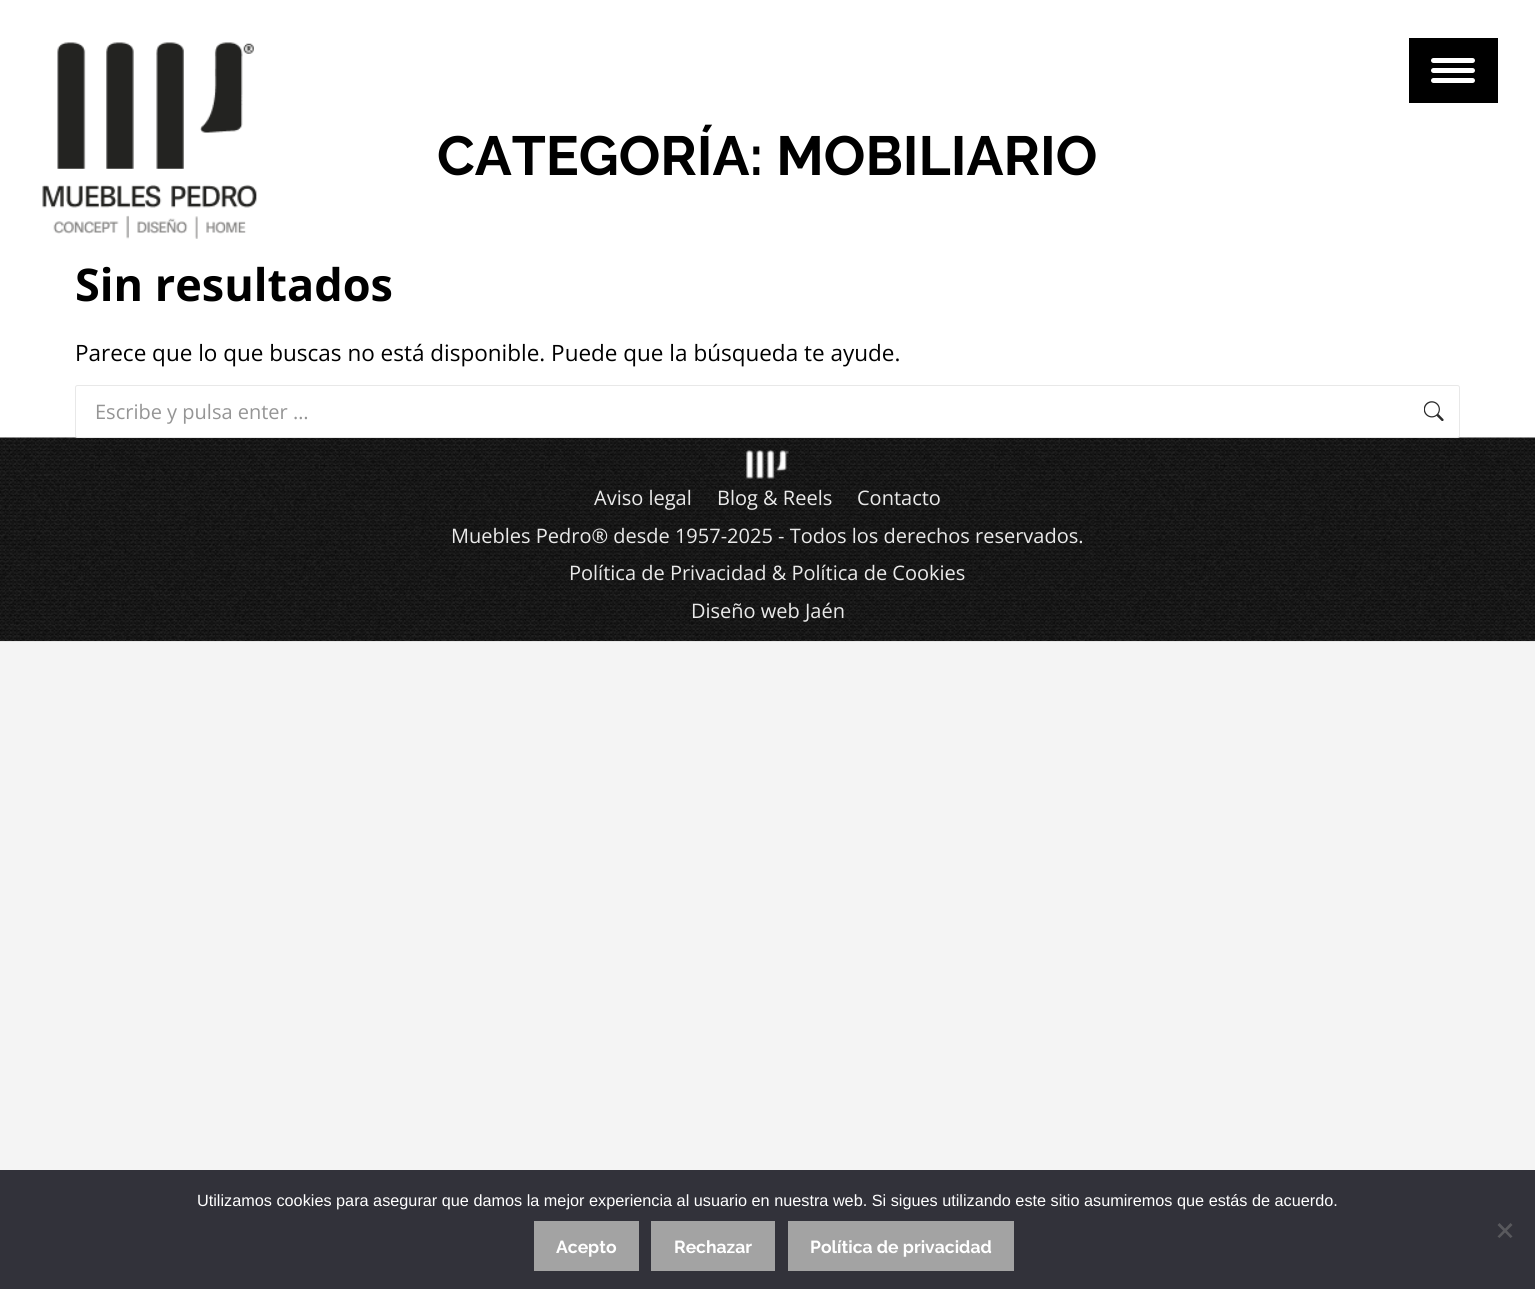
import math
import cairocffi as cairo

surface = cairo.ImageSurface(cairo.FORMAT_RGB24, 1535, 1289)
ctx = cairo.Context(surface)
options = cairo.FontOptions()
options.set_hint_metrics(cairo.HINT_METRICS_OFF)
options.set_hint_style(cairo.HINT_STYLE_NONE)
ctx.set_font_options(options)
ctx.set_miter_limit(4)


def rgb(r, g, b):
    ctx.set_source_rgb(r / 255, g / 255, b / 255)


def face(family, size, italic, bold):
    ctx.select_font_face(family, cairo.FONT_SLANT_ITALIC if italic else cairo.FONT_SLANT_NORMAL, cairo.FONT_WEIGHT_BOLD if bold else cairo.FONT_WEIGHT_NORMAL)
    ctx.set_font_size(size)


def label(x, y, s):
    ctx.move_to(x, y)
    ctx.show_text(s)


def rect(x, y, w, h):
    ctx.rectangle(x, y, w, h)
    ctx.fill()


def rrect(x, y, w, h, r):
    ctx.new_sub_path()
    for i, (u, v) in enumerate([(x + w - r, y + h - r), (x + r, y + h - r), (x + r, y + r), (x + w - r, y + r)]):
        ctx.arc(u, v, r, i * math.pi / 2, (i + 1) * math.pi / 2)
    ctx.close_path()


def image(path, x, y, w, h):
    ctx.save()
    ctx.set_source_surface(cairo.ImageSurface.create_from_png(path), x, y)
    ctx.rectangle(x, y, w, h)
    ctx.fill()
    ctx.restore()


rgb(244, 244, 244)
ctx.paint()
rgb(255, 255, 255)
rect(0, 0, 1535, 438)
image('image0.png', 42, 42, 215, 197)
rgb(0, 0, 0)
rect(1409, 38, 89, 65)
rgb(255, 255, 255)
rrect(1431, 58, 44, 5, 2.5)
ctx.fill()
rrect(1431, 68, 44, 5, 2.5)
ctx.fill()
rrect(1431, 78, 44, 5, 2.5)
ctx.fill()
face('Raleway', 55, 0, 1)
rgb(0, 0, 0)
label(437, 175, 'CATEGORÍA: MOBILIARIO')
face('Open Sans', 45, 0, 1)
label(75, 301, 'Sin resultados')
face('Open Sans', 22.5, 0, 0)
label(75, 361, 'Parece que lo que buscas no está disponible. Puede que la búsqueda te ayude.')
image('image2.png', 0, 437, 1535, 205)
rgb(255, 255, 255)
rrect(75, 385, 1385, 53, 2.5)
ctx.fill()
rrect(75.5, 385.5, 1384, 52, 2)
ctx.set_source_rgba(0.2, 0.2, 0.2, 0.11)
ctx.set_line_width(1)
ctx.stroke()
face('Open Sans', 20, 0, 0)
rgb(149, 149, 149)
label(95, 419, 'Escribe y pulsa enter …')
image('image1.png', 1424, 401, 20, 20)
image('image3.png', 746, 450, 43, 29)
rgb(234, 234, 234)
label(594, 505, 'Aviso legal')
label(717, 505, 'Blog & Reels')
label(857, 505, 'Contacto')
label(451, 543, 'Muebles Pedro® desde 1957-2025 - Todos los derechos reservados.')
label(569, 580, 'Política de Privacidad & Política de Cookies')
label(691, 618, 'Diseño web Jaén')
rgb(50, 50, 58)
rect(0, 1170, 1535, 119)
face('Liberation Sans', 16.25, 0, 0)
rgb(255, 255, 255)
label(197, 1206, 'Utilizamos cookies para asegurar que damos la mejor experiencia al usuario en nuestra web. Si sigues utilizando este sitio asumiremos que estás de acuerdo.')
rgb(89, 89, 93)
ctx.new_path()
ctx.move_to(1510.5, 1223)
ctx.line_to(1512.5, 1225)
ctx.line_to(1499.5, 1238)
ctx.line_to(1497.5, 1236.5)
ctx.close_path()
ctx.fill()
ctx.new_path()
ctx.move_to(1497.5, 1225)
ctx.line_to(1499.5, 1223)
ctx.line_to(1512.5, 1236.5)
ctx.line_to(1510.5, 1238)
ctx.close_path()
ctx.fill()
rgb(163, 163, 163)
rect(534, 1221, 105, 50)
face('Raleway', 17.5, 0, 1)
rgb(255, 255, 255)
label(556, 1253, 'Acepto')
rgb(163, 163, 163)
rect(651, 1221, 124, 50)
rgb(255, 255, 255)
label(674, 1253, 'Rechazar')
rgb(163, 163, 163)
rect(788, 1221, 226, 50)
rgb(255, 255, 255)
label(810, 1253, 'Política de privacidad')
surface.write_to_png('render.png')
